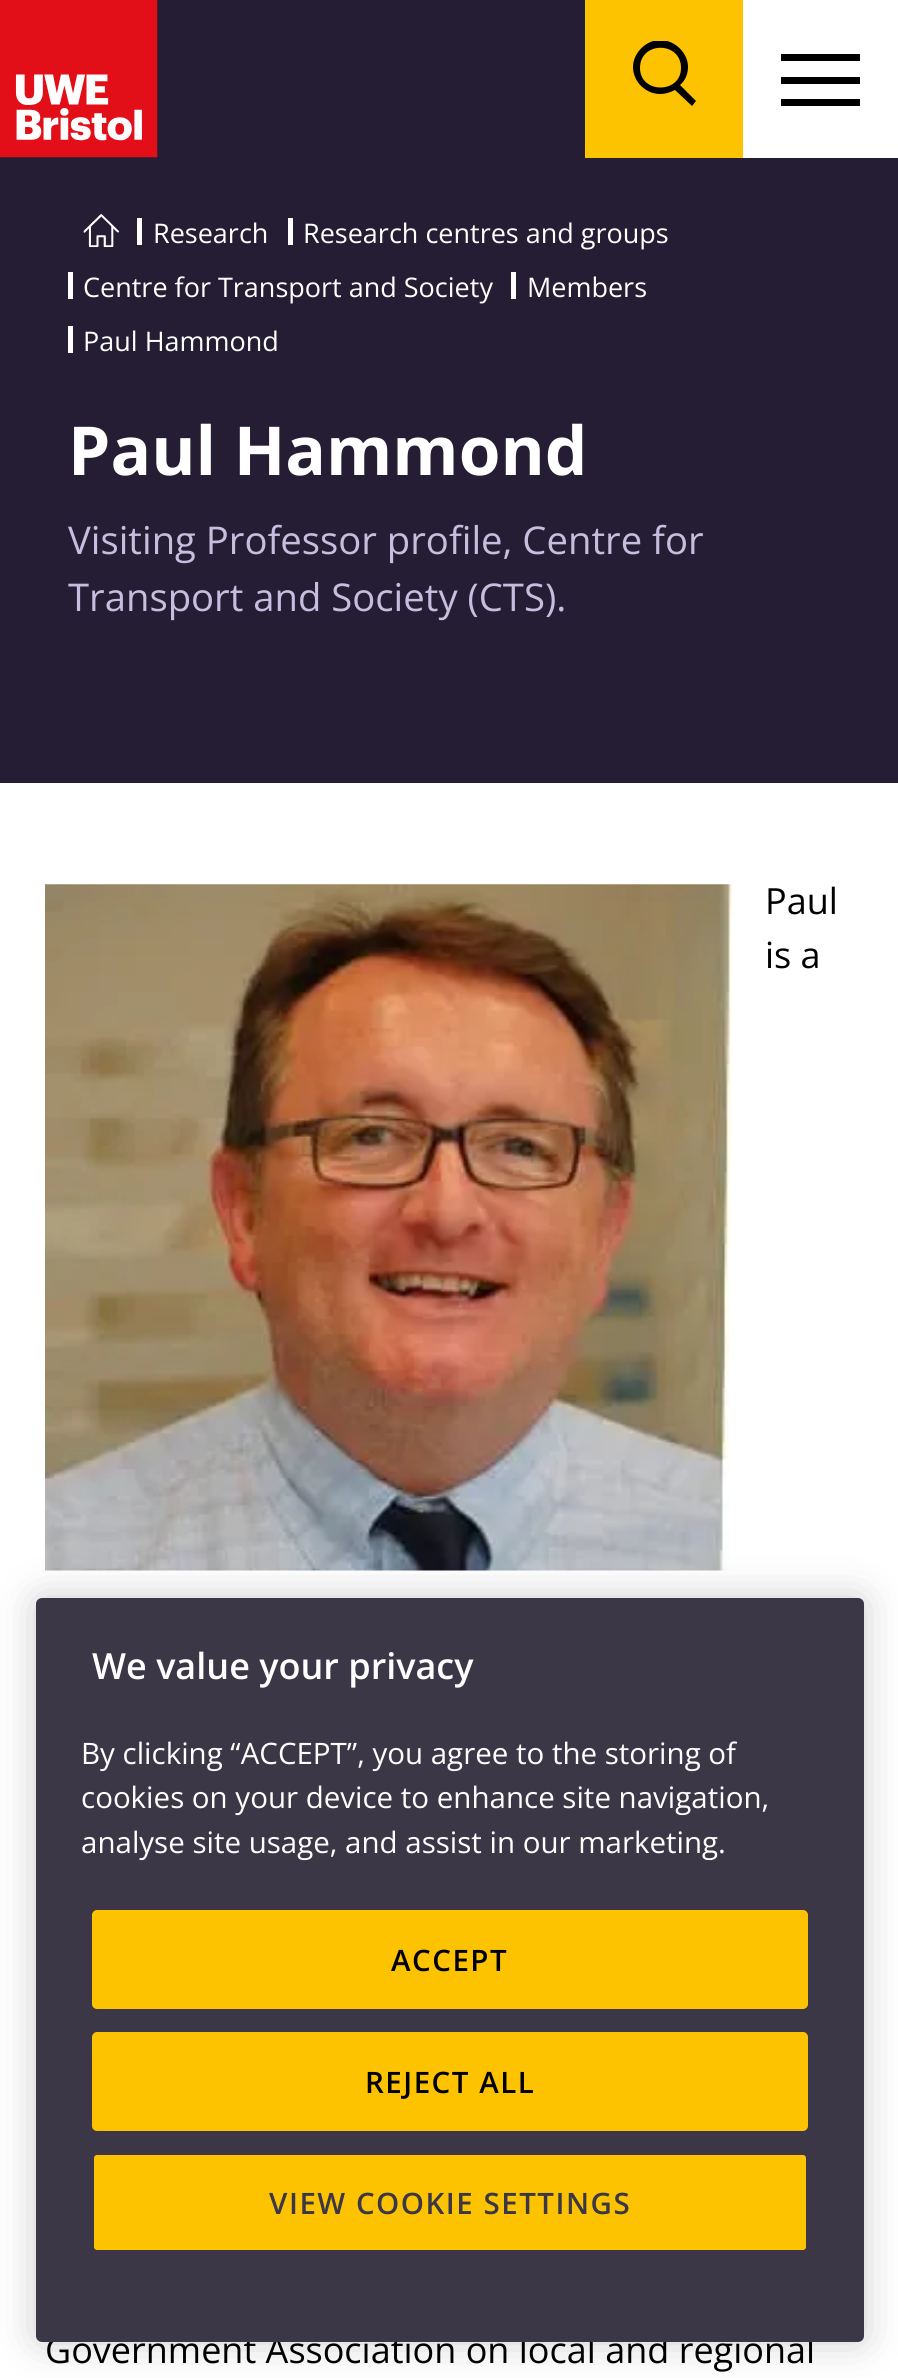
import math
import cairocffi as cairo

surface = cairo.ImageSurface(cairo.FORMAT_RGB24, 898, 2378)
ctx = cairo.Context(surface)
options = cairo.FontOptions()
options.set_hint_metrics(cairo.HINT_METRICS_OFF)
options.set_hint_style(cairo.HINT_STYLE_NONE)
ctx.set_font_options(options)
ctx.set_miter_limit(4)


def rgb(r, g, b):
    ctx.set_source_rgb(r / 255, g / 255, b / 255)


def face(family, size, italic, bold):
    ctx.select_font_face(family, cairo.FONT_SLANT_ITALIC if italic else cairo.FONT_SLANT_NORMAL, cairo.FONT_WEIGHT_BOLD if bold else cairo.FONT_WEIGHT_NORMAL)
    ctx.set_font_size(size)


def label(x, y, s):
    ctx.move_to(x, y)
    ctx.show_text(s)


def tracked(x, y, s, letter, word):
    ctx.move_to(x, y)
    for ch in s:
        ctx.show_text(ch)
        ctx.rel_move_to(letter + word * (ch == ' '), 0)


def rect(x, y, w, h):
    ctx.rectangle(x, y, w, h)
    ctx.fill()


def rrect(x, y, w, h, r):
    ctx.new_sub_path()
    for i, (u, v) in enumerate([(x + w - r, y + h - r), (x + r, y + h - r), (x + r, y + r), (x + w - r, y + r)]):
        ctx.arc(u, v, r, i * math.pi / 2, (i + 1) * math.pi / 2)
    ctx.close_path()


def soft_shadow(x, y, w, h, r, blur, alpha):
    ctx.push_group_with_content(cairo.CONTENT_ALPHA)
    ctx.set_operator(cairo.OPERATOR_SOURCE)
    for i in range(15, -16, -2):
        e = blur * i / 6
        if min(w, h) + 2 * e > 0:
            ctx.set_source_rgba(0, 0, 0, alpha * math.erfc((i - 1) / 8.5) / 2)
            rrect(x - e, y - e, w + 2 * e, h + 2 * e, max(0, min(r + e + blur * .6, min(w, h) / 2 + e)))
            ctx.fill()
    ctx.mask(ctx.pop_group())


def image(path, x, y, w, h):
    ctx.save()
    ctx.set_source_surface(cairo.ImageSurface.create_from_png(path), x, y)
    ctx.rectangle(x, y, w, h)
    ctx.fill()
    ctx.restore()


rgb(255, 255, 255)
ctx.paint()
rgb(36, 29, 51)
rect(0, 0, 898, 783)
image('image0.png', 0, 0, 158, 158)
rgb(253, 195, 0)
rect(585, 0, 158, 158)
ctx.save()
ctx.rectangle(632, 41, 66, 65)
ctx.clip()
rgb(0, 0, 0)
ctx.new_path()
ctx.move_to(640, 68)
ctx.curve_to(640, 41, 681, 41, 681, 68)
ctx.curve_to(681, 94, 640, 94, 640, 68)
ctx.close_path()
ctx.move_to(696, 101)
ctx.line_to(680, 85)
ctx.curve_to(685, 81, 688, 74, 688, 67)
ctx.curve_to(688, 53, 675, 40, 660, 40)
ctx.curve_to(646, 40, 633, 53, 633, 67)
ctx.curve_to(633, 82, 646, 94, 660, 94)
ctx.curve_to(666, 94, 671, 92, 675, 90)
ctx.line_to(692, 106)
ctx.close_path()
ctx.fill()
ctx.restore()
rgb(255, 255, 255)
rect(743, 0, 155, 158)
rgb(0, 0, 0)
rect(781, 54, 79, 7)
rect(781, 77, 79, 7)
rect(781, 99, 79, 7)
image('image1.png', 83, 214, 36, 34)
rgb(255, 255, 255)
rect(137, 218, 5, 27)
face('Open Sans', 27, 0, 0)
label(153, 243, 'Research')
rect(288, 218, 5, 27)
label(303, 243, 'Research centres and groups')
rect(68, 272, 5, 27)
label(83, 297, 'Centre for Transport and Society')
rect(511, 272, 5, 27)
label(527, 297, 'Members')
rect(68, 326, 5, 27)
label(83, 351, 'Paul Hammond')
face('Open Sans', 67.5, 0, 1)
label(68, 475, 'Paul Hammond')
face('Open Sans', 38.25, 0, 0)
rgb(198, 190, 223)
label(68, 554, 'Visiting Professor profile, Centre for')
label(68, 611, 'Transport and Society (CTS).')
image('image2.png', 45, 884, 687, 687)
face('Open Sans', 36, 0, 0)
rgb(0, 0, 0)
label(765, 914, 'Paul')
label(765, 968, 'is a')
label(45, 2363, 'Government Association on local and regional')
rgb(0, 0, 0)
soft_shadow(36, 1598, 828, 744, 6, 20, 0.2)
rgb(59, 55, 71)
rrect(36, 1598, 828, 744, 6)
ctx.fill()
face('Open Sans SemiBold', 36, 0, 0)
rgb(255, 255, 255)
label(92, 1679, 'We value your privacy')
face('Open Sans', 29.5, 0, 0)
label(81, 1764, 'By clicking “ACCEPT”, you agree to the storing of')
label(81, 1808, 'cookies on your device to enhance site navigation,')
label(81, 1853, 'analyse site usage, and assist in our marketing.')
rgb(253, 195, 0)
rrect(93, 1911, 714, 97, 4)
ctx.fill_preserve()
ctx.stroke()
face('Open Sans SemiBold', 29.5, 0, 0)
rgb(0, 0, 0)
tracked(391, 1971, 'ACCEPT', 1.5, 0)
rgb(253, 195, 0)
rrect(93, 2033, 714, 97, 4)
ctx.fill_preserve()
ctx.stroke()
rgb(0, 0, 0)
tracked(365, 2093, 'REJECT ALL', 1.5, 0)
rgb(253, 195, 0)
rrect(93, 2154, 714, 97, 4)
ctx.fill_preserve()
rgb(59, 55, 71)
ctx.stroke()
tracked(269, 2214, 'VIEW COOKIE SETTINGS', 1.5, 0)
surface.write_to_png('render.png')
